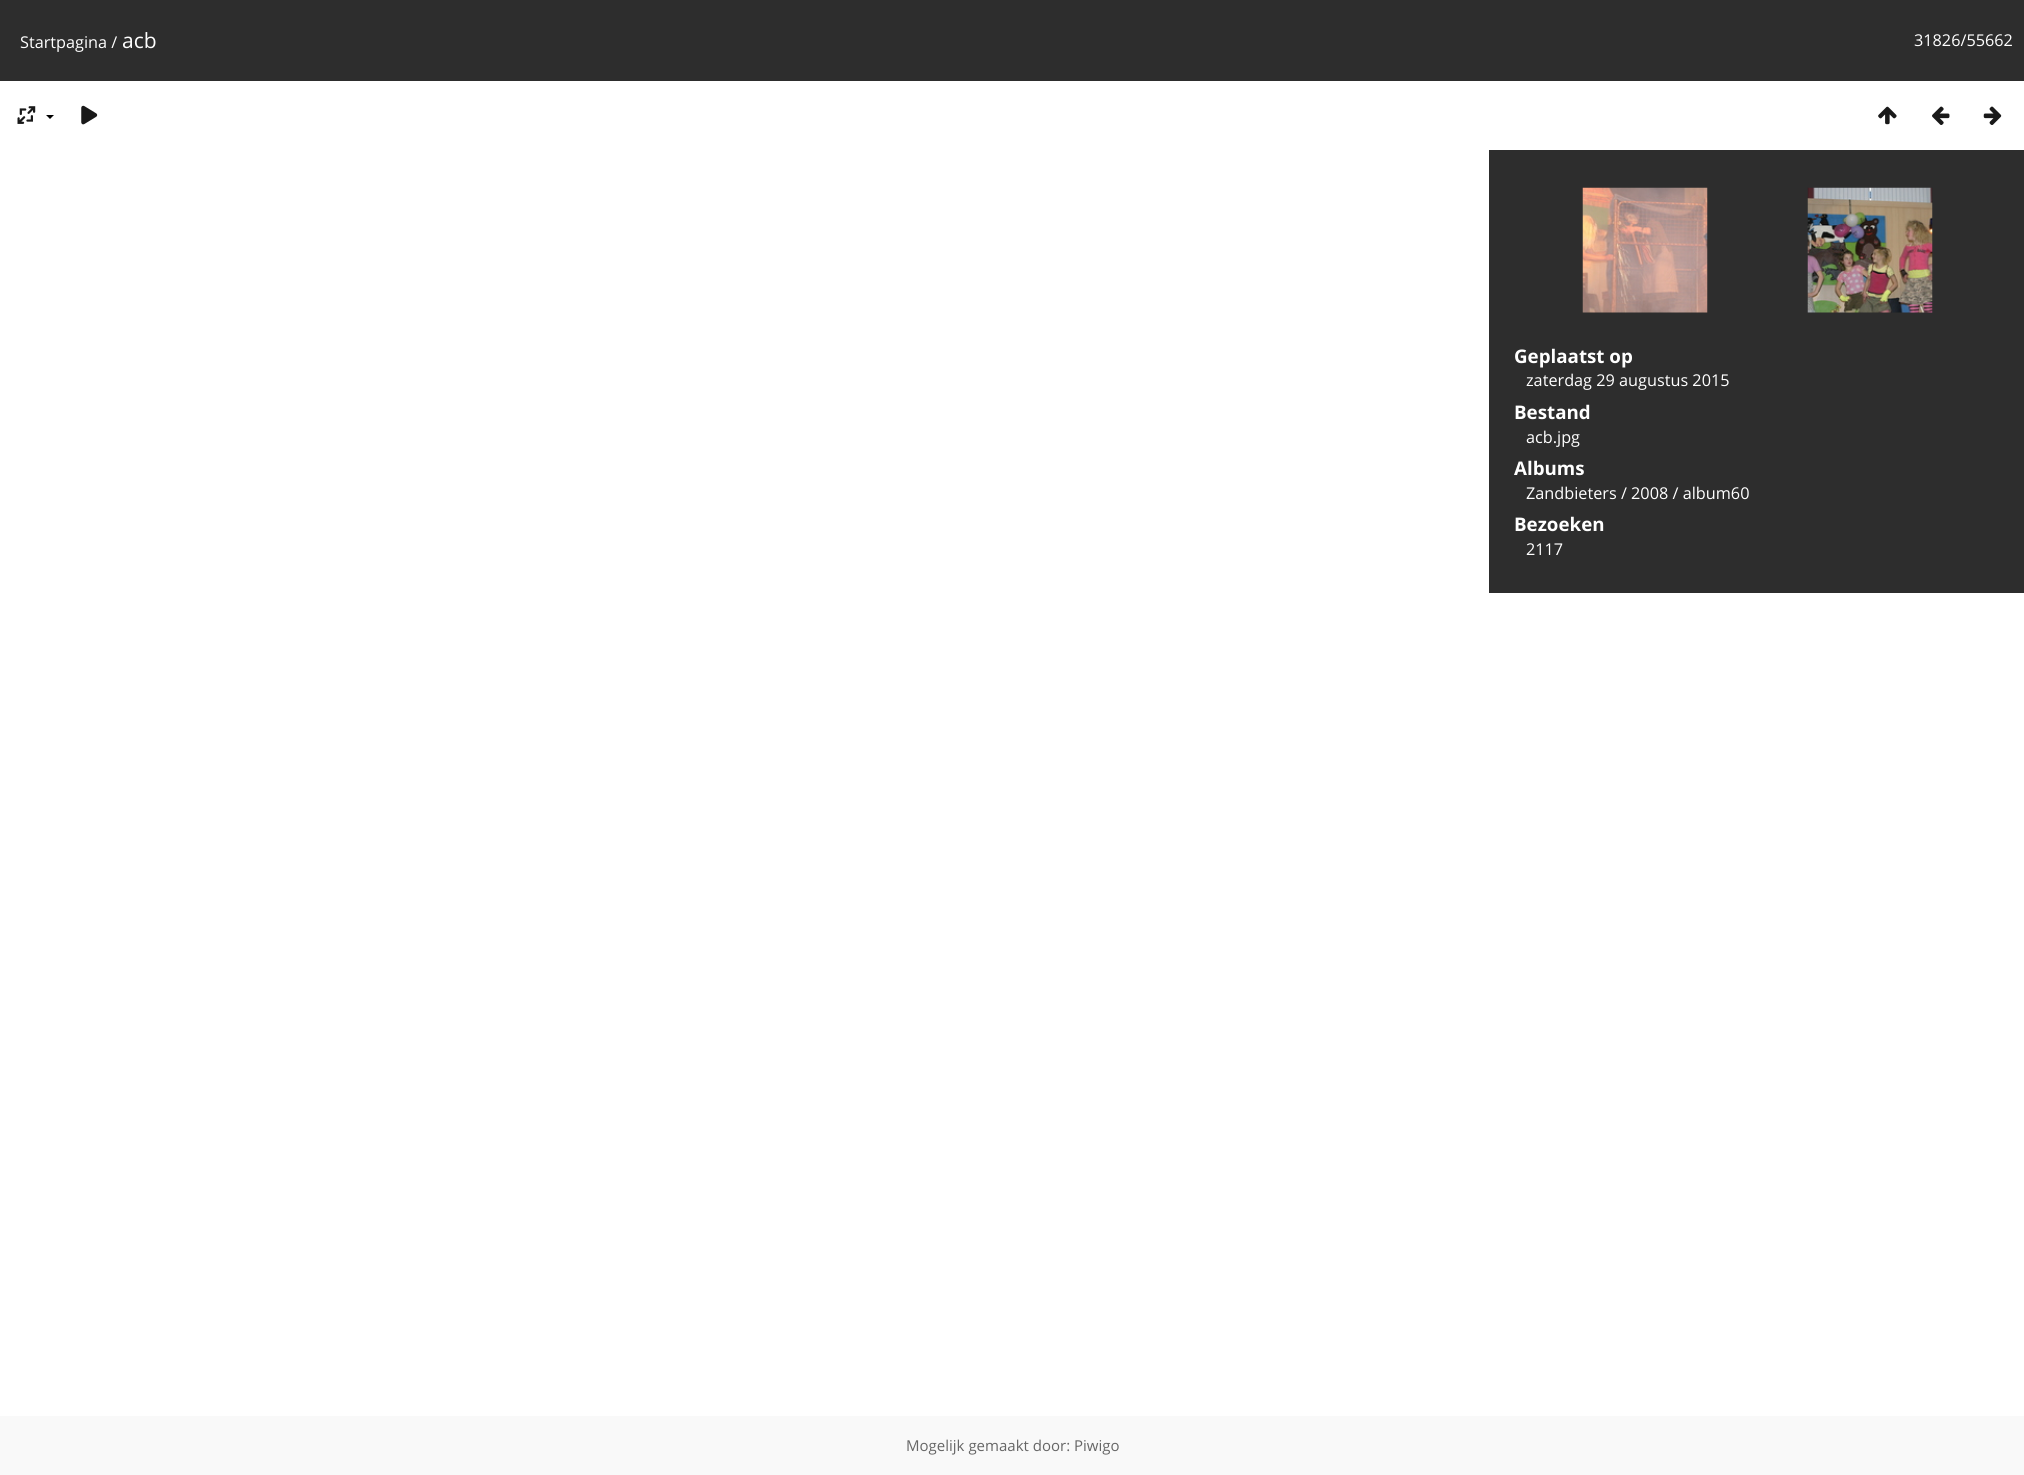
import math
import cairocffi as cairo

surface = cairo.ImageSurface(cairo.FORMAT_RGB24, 2024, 1475)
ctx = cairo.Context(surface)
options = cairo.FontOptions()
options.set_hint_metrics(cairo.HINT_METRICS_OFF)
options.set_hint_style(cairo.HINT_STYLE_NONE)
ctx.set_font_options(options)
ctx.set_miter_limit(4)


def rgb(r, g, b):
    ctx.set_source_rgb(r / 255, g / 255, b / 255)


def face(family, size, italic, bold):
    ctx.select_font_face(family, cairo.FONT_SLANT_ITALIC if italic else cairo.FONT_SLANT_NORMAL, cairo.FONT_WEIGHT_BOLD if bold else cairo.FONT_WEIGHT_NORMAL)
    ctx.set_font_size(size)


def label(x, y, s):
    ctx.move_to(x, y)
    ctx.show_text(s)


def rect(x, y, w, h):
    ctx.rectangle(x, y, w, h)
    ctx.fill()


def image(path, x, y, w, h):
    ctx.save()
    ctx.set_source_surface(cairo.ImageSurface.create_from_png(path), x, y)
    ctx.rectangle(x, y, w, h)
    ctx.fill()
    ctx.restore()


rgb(255, 255, 255)
ctx.paint()
rgb(45, 45, 45)
rect(0, 0, 2024, 81)
face('Open Sans', 16.25, 0, 0)
rgb(255, 255, 255)
label(20, 48, 'Startpagina /')
face('Open Sans', 21, 0, 0)
label(122, 48, 'acb')
face('Open Sans', 16.25, 0, 0)
label(1914, 46, '31826/55662')
image('image0.png', 17, 106, 19, 18)
rgb(0, 0, 0)
ctx.new_path()
ctx.move_to(46, 115)
ctx.line_to(54, 115)
ctx.line_to(50, 119)
ctx.close_path()
ctx.fill()
image('image1.png', 81, 105, 17, 20)
image('image2.png', 1878, 106, 19, 19)
image('image3.png', 1932, 106, 18, 19)
image('image4.png', 1983, 106, 19, 19)
rgb(45, 45, 45)
rect(1489, 150, 535, 443)
image('image5.png', 1582, 187, 126, 126)
image('image6.png', 1807, 187, 126, 126)
face('Open Sans', 18.75, 0, 1)
rgb(255, 255, 255)
label(1514, 363, 'Geplaatst op')
face('Open Sans', 16.25, 0, 0)
label(1526, 386, 'zaterdag 29 augustus 2015')
face('Open Sans', 18.75, 0, 1)
label(1514, 419, 'Bestand')
face('Open Sans', 16.25, 0, 0)
label(1526, 443, 'acb.jpg')
face('Open Sans', 18.75, 0, 1)
label(1514, 475, 'Albums')
face('Open Sans', 16.25, 0, 0)
label(1526, 499, 'Zandbieters / 2008 / album60')
face('Open Sans', 18.75, 0, 1)
label(1514, 531, 'Bezoeken')
face('Open Sans', 16.25, 0, 0)
label(1526, 555, '2117')
rgb(249, 249, 249)
rect(0, 1416, 2024, 59)
face('Open Sans', 15, 0, 0)
rgb(102, 102, 102)
label(906, 1451, 'Mogelijk gemaakt door: Piwigo')
surface.write_to_png('render.png')
